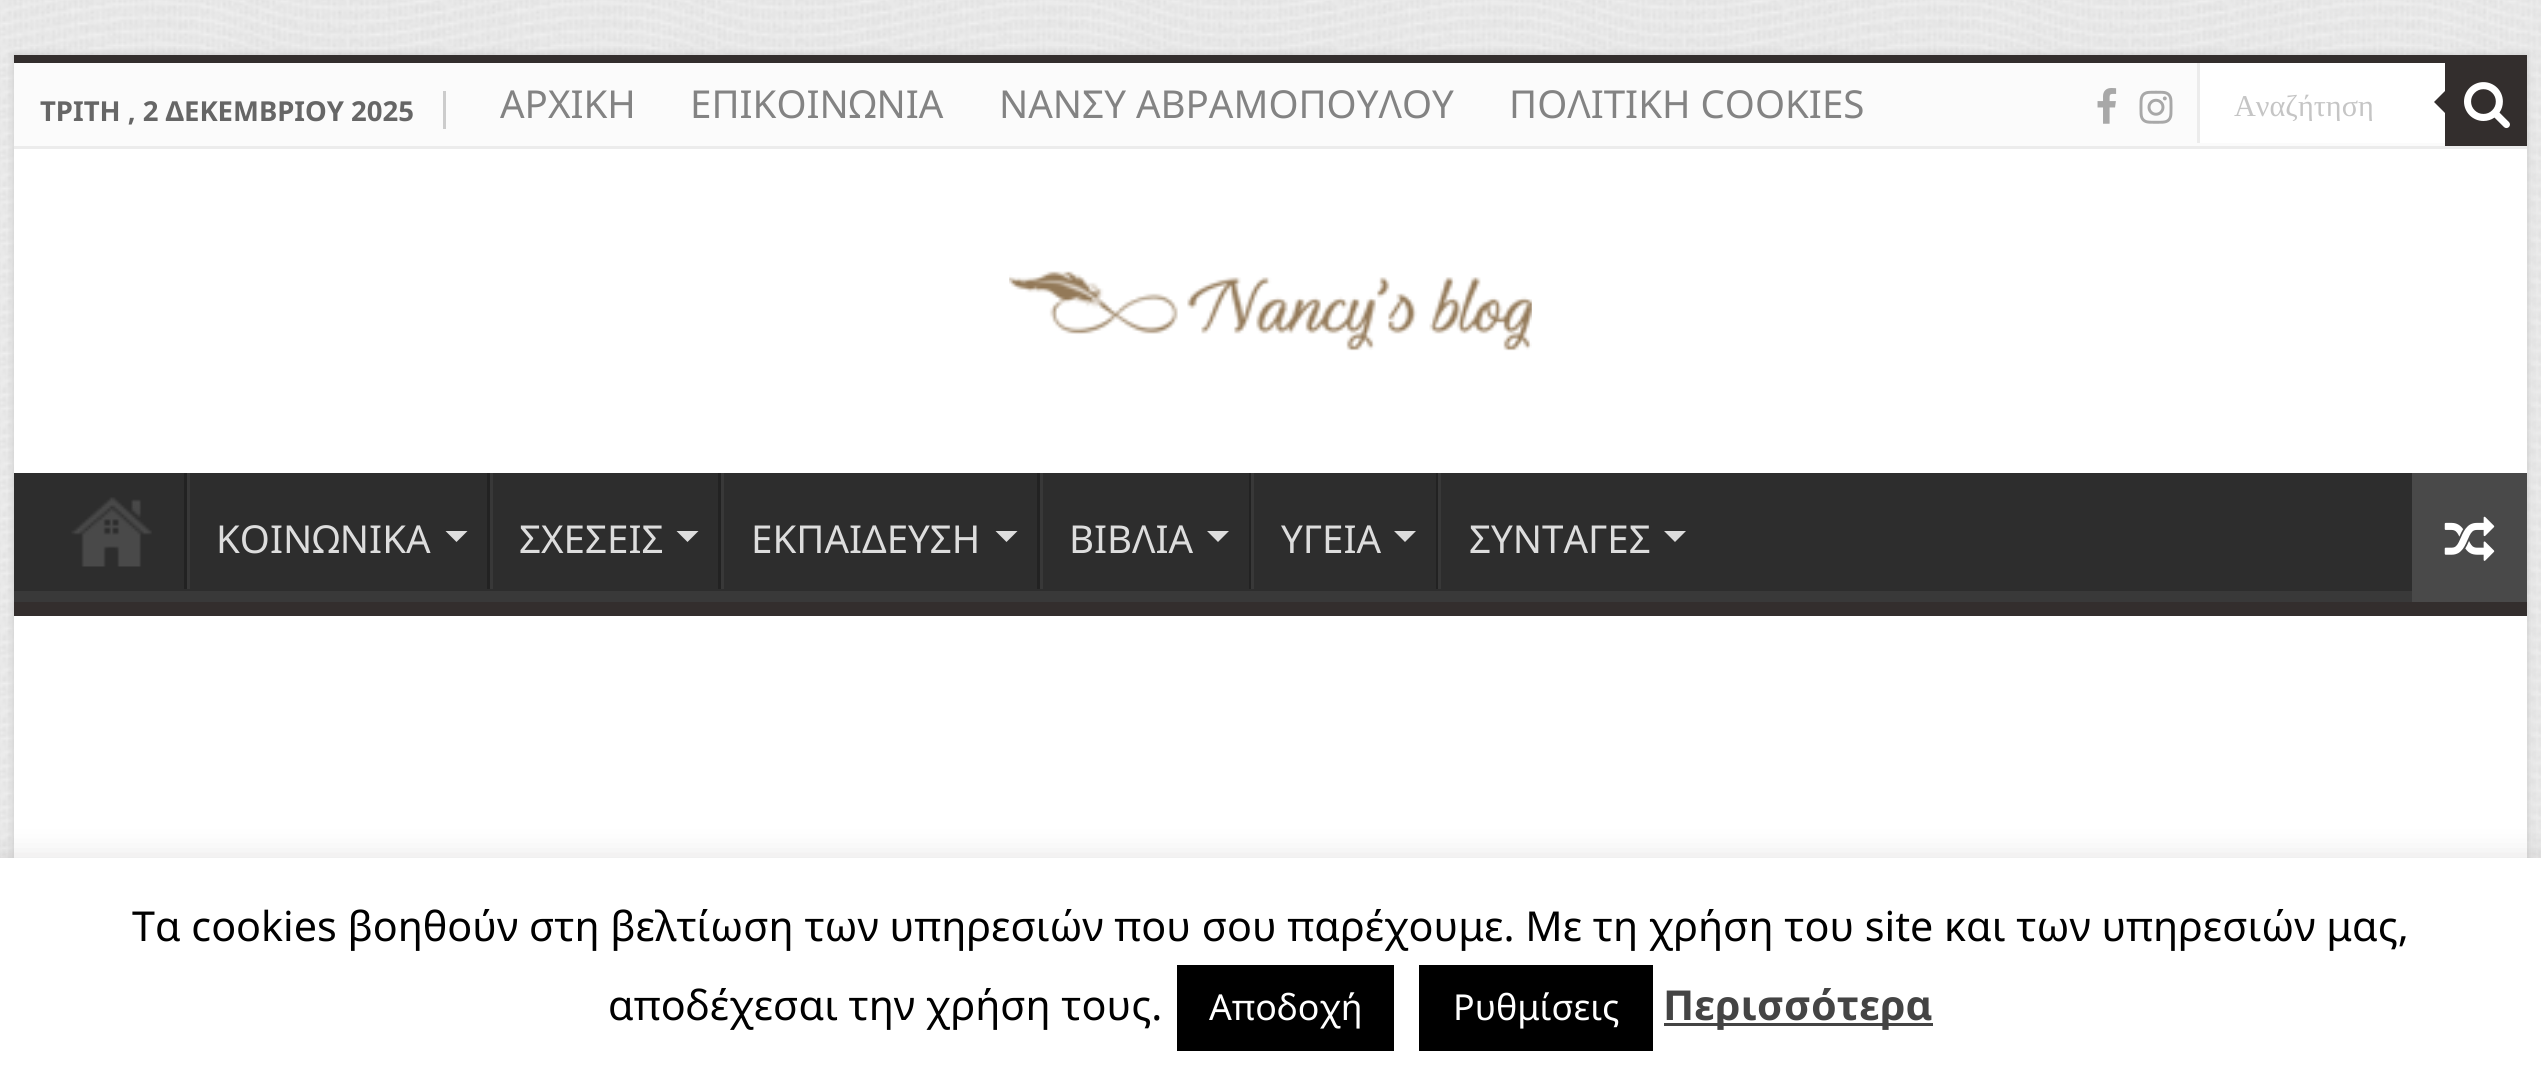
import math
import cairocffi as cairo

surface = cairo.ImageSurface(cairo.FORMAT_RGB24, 2541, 1082)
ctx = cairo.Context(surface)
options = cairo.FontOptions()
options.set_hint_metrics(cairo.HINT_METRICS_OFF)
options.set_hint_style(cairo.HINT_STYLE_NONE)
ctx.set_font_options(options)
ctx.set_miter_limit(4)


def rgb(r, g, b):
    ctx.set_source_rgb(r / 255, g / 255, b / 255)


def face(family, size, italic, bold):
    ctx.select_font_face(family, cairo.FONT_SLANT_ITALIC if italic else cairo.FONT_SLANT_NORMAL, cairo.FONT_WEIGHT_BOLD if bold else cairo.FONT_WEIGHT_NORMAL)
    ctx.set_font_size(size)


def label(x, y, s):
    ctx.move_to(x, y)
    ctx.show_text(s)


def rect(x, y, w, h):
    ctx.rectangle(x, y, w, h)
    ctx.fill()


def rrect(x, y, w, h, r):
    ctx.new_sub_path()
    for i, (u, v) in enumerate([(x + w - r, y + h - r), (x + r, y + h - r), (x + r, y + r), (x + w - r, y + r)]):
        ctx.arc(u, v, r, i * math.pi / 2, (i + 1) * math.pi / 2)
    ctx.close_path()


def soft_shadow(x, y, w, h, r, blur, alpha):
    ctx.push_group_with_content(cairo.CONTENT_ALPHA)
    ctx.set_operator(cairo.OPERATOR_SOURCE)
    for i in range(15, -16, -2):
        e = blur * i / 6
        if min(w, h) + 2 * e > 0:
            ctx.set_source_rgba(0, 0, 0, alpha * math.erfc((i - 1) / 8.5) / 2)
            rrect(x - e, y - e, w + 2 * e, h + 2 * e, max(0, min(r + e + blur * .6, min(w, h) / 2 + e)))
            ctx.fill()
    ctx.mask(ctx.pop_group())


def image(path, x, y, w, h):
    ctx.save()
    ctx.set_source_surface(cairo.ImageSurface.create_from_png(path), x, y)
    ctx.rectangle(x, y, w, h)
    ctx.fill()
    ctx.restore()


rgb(255, 255, 255)
ctx.paint()
image('image0.png', 0, 0, 2541, 858)
rgb(202, 202, 202)
soft_shadow(14, 55, 2513, 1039, 0, 4, 1)
rgb(255, 255, 255)
rect(14, 149, 2513, 709)
rgb(51, 46, 45)
rect(14, 55, 2513, 8)
rgb(251, 251, 251)
rect(14, 63, 2431, 83)
rgb(236, 236, 236)
rect(14, 146, 2513, 3)
rgb(204, 204, 204)
rect(443, 91, 3, 38)
face('Noto Sans', 27.5, 0, 1)
rgb(102, 102, 102)
label(40, 121, 'ΤΡΙΤΗ , 2 ΔΕΚΕΜΒΡΙΟΥ 2025')
face('Noto Sans', 38.5, 0, 0)
rgb(131, 131, 131)
label(500, 118, 'ΑΡΧΙΚΗ')
label(690, 118, 'ΕΠΙΚΟΙΝΩΝΙΑ')
label(999, 118, 'ΝΑΝΣΥ ΑΒΡΑΜΟΠΟΥΛΟΥ')
label(1509, 118, 'ΠΟΛΙΤΙΚΗ COOKIES')
image('image1.png', 2097, 88, 20, 36)
image('image2.png', 2139, 90, 34, 34)
rgb(255, 255, 255)
rect(2200, 63, 245, 80)
rgb(236, 236, 236)
rect(2197, 63, 3, 80)
ctx.save()
ctx.rectangle(2233, 88, 179, 33)
ctx.clip()
face('Liberation Serif', 30.25, 0, 0)
rgb(197, 197, 197)
label(2234, 116, 'Αναζήτηση')
ctx.restore()
rgb(51, 46, 45)
rect(2445, 63, 82, 83)
image('image3.png', 2464, 82, 46, 47)
ctx.new_path()
ctx.move_to(2445, 91)
ctx.line_to(2445, 113)
ctx.line_to(2434, 102)
ctx.close_path()
ctx.fill()
image('image4.png', 1009, 271, 523, 80)
rgb(45, 45, 45)
rect(14, 473, 2398, 118)
ctx.save()
ctx.rectangle(14, 473, 2513, 129)
ctx.clip()
rgb(57, 57, 57)
ctx.set_fill_rule(cairo.FILL_RULE_EVEN_ODD)
ctx.new_path()
ctx.move_to(-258, 201)
ctx.line_to(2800, 201)
ctx.line_to(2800, 874)
ctx.line_to(-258, 874)
ctx.close_path()
ctx.move_to(11, 456)
ctx.line_to(2524, 456)
ctx.curve_to(2526, 456, 2527, 458, 2527, 459)
ctx.line_to(2527, 588)
ctx.curve_to(2527, 590, 2526, 591, 2524, 591)
ctx.line_to(11, 591)
ctx.curve_to(9, 591, 8, 590, 8, 588)
ctx.line_to(8, 459)
ctx.curve_to(8, 458, 9, 456, 11, 456)
ctx.close_path()
ctx.fill()
ctx.restore()
rgb(51, 46, 45)
rect(14, 602, 2513, 14)
image('image5.png', 71, 497, 81, 70)
rgb(34, 34, 34)
rect(184, 473, 3, 116)
rgb(56, 56, 56)
rect(187, 473, 3, 116)
rgb(221, 221, 221)
label(216, 553, 'ΚΟΙΝΩΝΙΚΑ')
ctx.new_path()
ctx.move_to(445.5, 531)
ctx.line_to(467.5, 531)
ctx.line_to(456.5, 542)
ctx.close_path()
ctx.fill()
rgb(34, 34, 34)
rect(487, 473, 3, 116)
rgb(56, 56, 56)
rect(490, 473, 3, 116)
rgb(221, 221, 221)
label(519, 553, 'ΣΧΕΣΕΙΣ')
ctx.new_path()
ctx.move_to(676.5, 531)
ctx.line_to(698.5, 531)
ctx.line_to(687.5, 542)
ctx.close_path()
ctx.fill()
rgb(34, 34, 34)
rect(718, 473, 3, 116)
rgb(56, 56, 56)
rect(721, 473, 3, 116)
rgb(221, 221, 221)
label(751, 553, 'ΕΚΠΑΙΔΕΥΣΗ')
ctx.new_path()
ctx.move_to(995.5, 531)
ctx.line_to(1017.5, 531)
ctx.line_to(1006.5, 542)
ctx.close_path()
ctx.fill()
rgb(34, 34, 34)
rect(1037, 473, 3, 116)
rgb(56, 56, 56)
rect(1040, 473, 3, 116)
rgb(221, 221, 221)
label(1069, 553, 'ΒΙΒΛΙΑ')
ctx.new_path()
ctx.move_to(1207, 531)
ctx.line_to(1229, 531)
ctx.line_to(1218, 542)
ctx.close_path()
ctx.fill()
rgb(34, 34, 34)
rect(1249, 473, 2, 116)
rgb(56, 56, 56)
rect(1251, 473, 3, 116)
rgb(221, 221, 221)
label(1281, 553, 'ΥΓΕΙΑ')
ctx.new_path()
ctx.move_to(1394, 531)
ctx.line_to(1416, 531)
ctx.line_to(1405, 542)
ctx.close_path()
ctx.fill()
rgb(34, 34, 34)
rect(1436, 473, 2, 116)
rgb(56, 56, 56)
rect(1438, 473, 3, 116)
rgb(221, 221, 221)
label(1469, 553, 'ΣΥΝΤΑΓΕΣ')
ctx.new_path()
ctx.move_to(1664, 531)
ctx.line_to(1686, 531)
ctx.line_to(1675, 542)
ctx.close_path()
ctx.fill()
rgb(73, 73, 73)
rect(2412, 473, 115, 129)
image('image6.png', 2444, 516, 51, 45)
rgb(172, 171, 171)
soft_shadow(0, 855, 2541, 226, 0, 14, 0.3)
rgb(255, 255, 255)
rect(0, 858, 2541, 224)
face('Noto Sans', 41.25, 0, 0)
rgb(0, 0, 0)
label(132, 941, 'Τα cookies βοηθούν στη βελτίωση των υπηρεσιών που σου παρέχουμε. Με τη χρήση του site και των υπηρεσιών μας,')
label(608, 1020, 'αποδέχεσαι την χρήση τους.')
rect(1177, 965, 217, 86)
face('Noto Sans', 35.75, 0, 0)
rgb(255, 255, 255)
label(1209, 1020, 'Αποδοχή')
rgb(0, 0, 0)
rect(1419, 965, 234, 86)
rgb(255, 255, 255)
label(1453, 1020, 'Ρυθμίσεις')
rgb(68, 68, 68)
rect(1664, 1023, 269, 3)
face('Noto Sans', 41.25, 0, 1)
label(1663, 1020, 'Περισσότερα')
surface.write_to_png('render.png')
